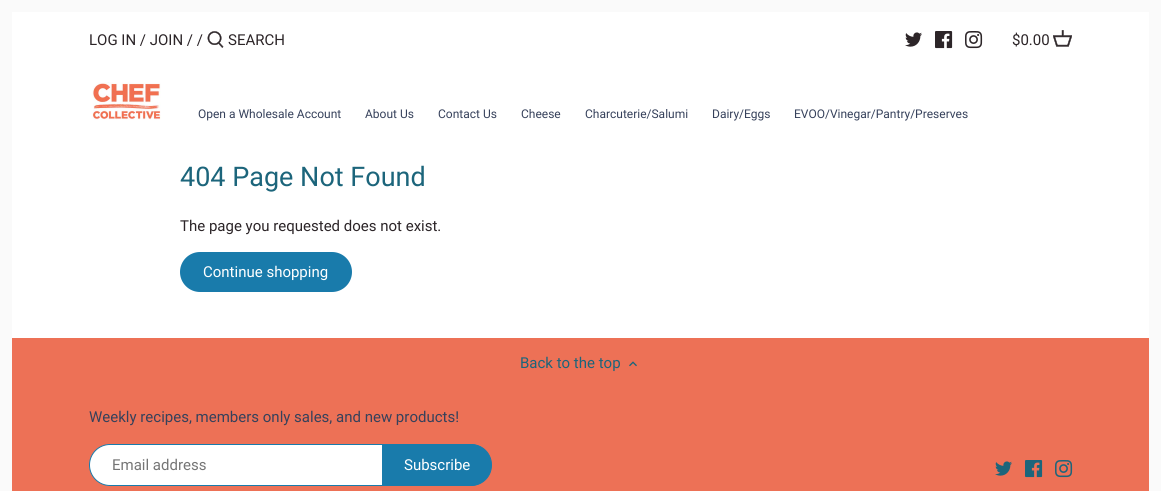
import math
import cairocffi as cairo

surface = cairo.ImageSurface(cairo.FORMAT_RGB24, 1161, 491)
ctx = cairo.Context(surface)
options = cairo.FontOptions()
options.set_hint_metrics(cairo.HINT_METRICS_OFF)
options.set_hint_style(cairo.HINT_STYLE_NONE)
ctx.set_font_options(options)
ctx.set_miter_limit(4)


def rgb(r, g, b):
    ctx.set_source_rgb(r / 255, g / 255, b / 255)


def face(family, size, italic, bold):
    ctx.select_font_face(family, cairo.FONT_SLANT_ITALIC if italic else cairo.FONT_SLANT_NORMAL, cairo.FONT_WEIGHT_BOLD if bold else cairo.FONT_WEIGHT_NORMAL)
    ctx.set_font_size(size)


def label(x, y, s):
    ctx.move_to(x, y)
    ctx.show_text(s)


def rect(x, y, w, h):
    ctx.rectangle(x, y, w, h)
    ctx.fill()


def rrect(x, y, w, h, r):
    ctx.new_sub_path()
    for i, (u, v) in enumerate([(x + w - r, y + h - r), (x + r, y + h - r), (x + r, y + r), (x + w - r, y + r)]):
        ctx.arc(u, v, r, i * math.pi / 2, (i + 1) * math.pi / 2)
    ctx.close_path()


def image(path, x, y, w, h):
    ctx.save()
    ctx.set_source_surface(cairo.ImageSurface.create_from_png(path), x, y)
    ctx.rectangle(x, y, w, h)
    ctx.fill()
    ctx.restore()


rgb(237, 113, 86)
ctx.paint()
ctx.rectangle(6, 6, 1149, 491)
rgb(250, 250, 250)
ctx.set_line_width(12)
ctx.stroke()
rgb(255, 255, 255)
rect(12, 12, 1137, 326)
face('Roboto', 15, 0, 0)
rgb(44, 37, 40)
label(89, 45, 'LOG IN / JOIN / /')
image('image0.png', 207, 31, 17, 17)
label(228, 45, 'SEARCH')
image('image1.png', 905, 32, 17, 15)
image('image2.png', 935, 31, 18, 18)
image('image3.png', 965, 31, 18, 18)
label(1012, 45, '$0.00')
image('image4.png', 1053, 30, 19, 17)
image('image5.png', 92, 82, 69, 38)
face('Roboto', 12, 0, 0)
rgb(54, 65, 91)
label(198, 118, 'Open a Wholesale Account')
label(365, 118, 'About Us')
label(438, 118, 'Contact Us')
label(521, 118, 'Cheese')
label(585, 118, 'Charcuterie/Salumi')
label(712, 118, 'Dairy/Eggs')
label(794, 118, 'EVOO/Vinegar/Pantry/Preserves')
face('Roboto', 27, 0, 0)
rgb(28, 101, 123)
label(180, 186, '404 Page Not Found')
face('Roboto', 15, 0, 0)
rgb(44, 37, 40)
label(180, 231, 'The page you requested does not exist.')
rgb(25, 123, 171)
rrect(181, 253, 170, 38, 19)
ctx.fill_preserve()
ctx.set_line_width(2)
ctx.stroke()
rgb(255, 255, 255)
label(203, 277, 'Continue shopping')
rgb(28, 101, 123)
label(520, 368, 'Back to the top')
image('image6.png', 629, 361, 8, 6)
rgb(54, 65, 91)
label(89, 422, 'Weekly recipes, members only sales, and new products!')
rgb(255, 255, 255)
rrect(89.5, 444.5, 401, 41, 20.5)
ctx.fill_preserve()
rgb(25, 123, 171)
ctx.set_line_width(1)
ctx.stroke()
rgb(117, 117, 117)
label(112, 470, 'Email address')
rgb(25, 123, 171)
ctx.new_path()
ctx.move_to(382.5, 444.5)
ctx.line_to(471, 444.5)
ctx.curve_to(482.5, 444.5, 491.5, 453.5, 491.5, 465)
ctx.curve_to(491.5, 476.5, 482.5, 485.5, 471, 485.5)
ctx.line_to(382.5, 485.5)
ctx.close_path()
ctx.fill_preserve()
ctx.stroke()
rgb(255, 255, 255)
label(404, 470, 'Subscribe')
image('image7.png', 995, 461, 17, 15)
image('image8.png', 1025, 460, 18, 18)
image('image9.png', 1055, 460, 18, 18)
surface.write_to_png('render.png')
